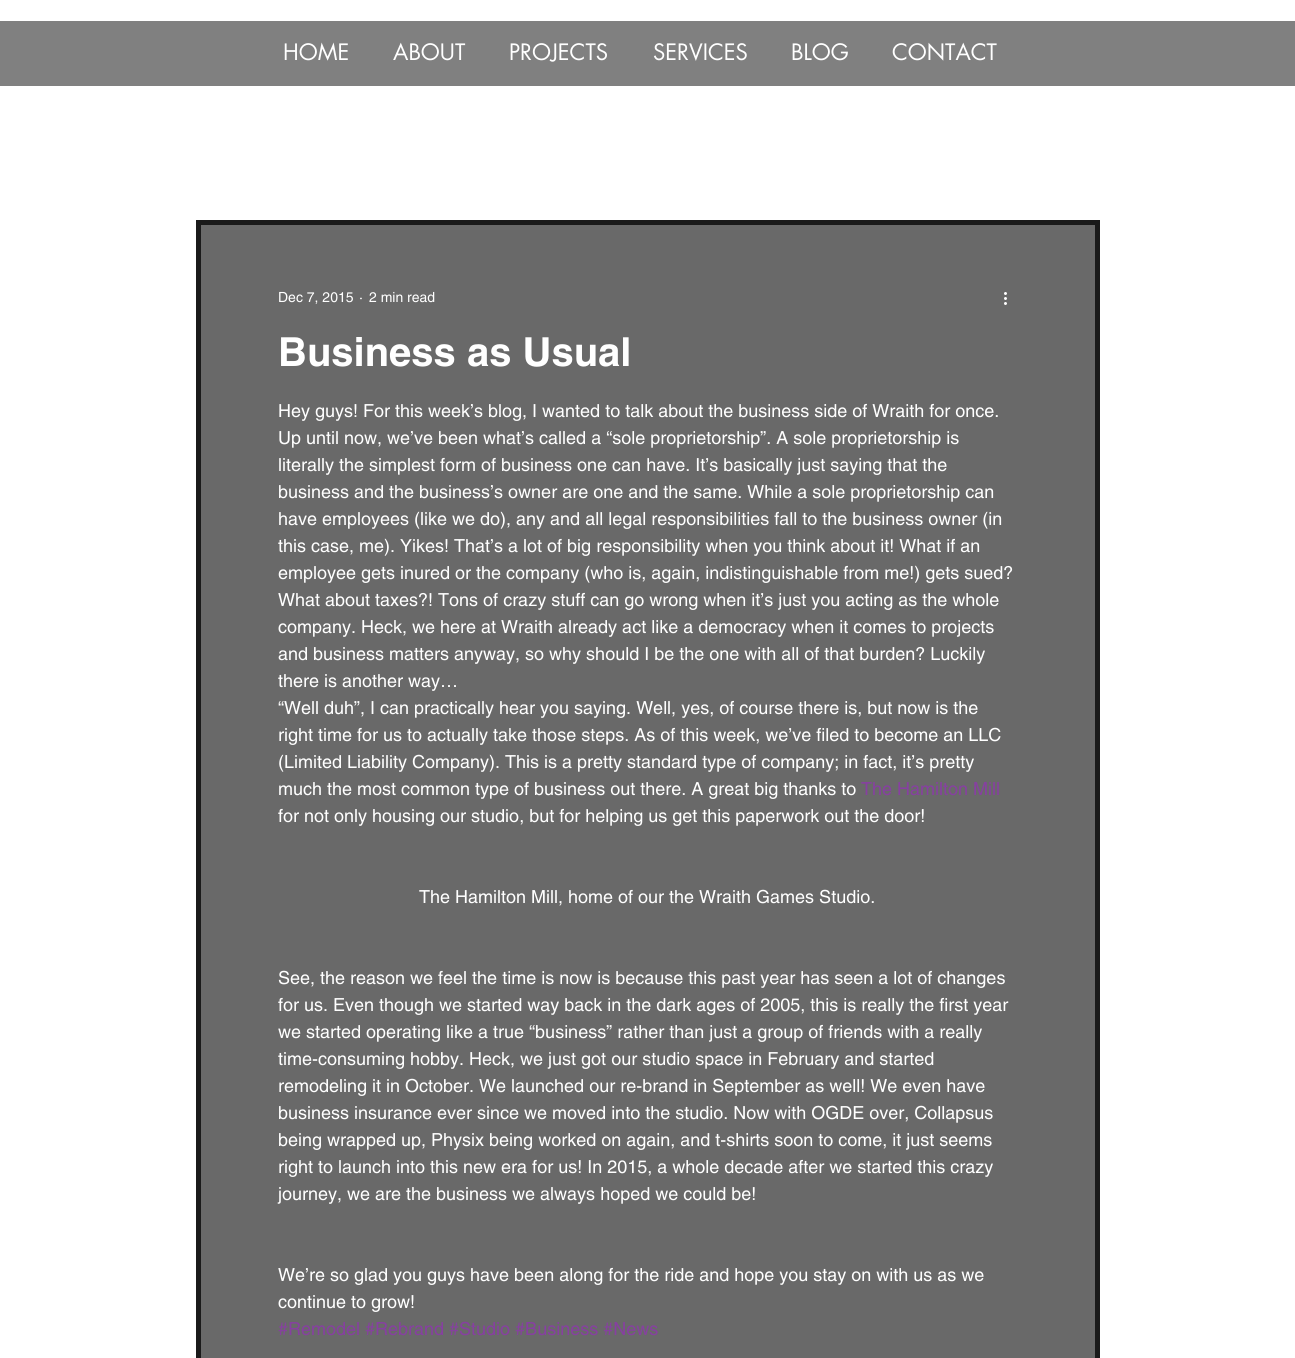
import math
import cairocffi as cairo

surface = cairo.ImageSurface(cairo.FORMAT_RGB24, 1295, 1358)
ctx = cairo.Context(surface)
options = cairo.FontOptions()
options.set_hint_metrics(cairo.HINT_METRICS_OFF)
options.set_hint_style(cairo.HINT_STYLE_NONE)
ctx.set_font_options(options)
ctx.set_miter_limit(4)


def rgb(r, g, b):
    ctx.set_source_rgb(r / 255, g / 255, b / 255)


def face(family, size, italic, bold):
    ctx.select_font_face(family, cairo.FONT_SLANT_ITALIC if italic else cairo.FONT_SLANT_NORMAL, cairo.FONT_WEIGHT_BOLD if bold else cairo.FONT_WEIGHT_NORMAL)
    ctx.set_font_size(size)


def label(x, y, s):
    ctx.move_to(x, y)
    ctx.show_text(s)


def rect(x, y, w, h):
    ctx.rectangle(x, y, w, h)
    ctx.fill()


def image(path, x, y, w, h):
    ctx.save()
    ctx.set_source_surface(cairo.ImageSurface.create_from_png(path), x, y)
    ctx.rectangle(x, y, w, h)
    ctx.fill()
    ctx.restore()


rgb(255, 255, 255)
ctx.paint()
rgb(128, 128, 128)
rect(0, 21, 1295, 65)
face('futura', 22, 0, 0)
rgb(255, 255, 255)
label(283, 60, 'HOME')
label(393, 60, 'ABOUT')
label(509, 60, 'PROJECTS')
label(653, 60, 'SERVICES')
label(791, 60, 'BLOG')
label(892, 60, 'CONTACT')
rgb(105, 105, 105)
ctx.rectangle(198.5, 222.5, 899, 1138)
ctx.fill_preserve()
rgb(26, 26, 26)
ctx.set_line_width(5)
ctx.stroke()
face('helvetica', 14, 0, 0)
rgb(255, 255, 255)
label(278, 302, 'Dec 7, 2015')
label(359, 302, '·')
label(369, 302, '2 min read')
image('image0.png', 1004, 292, 3, 13)
face('helvetica', 40, 0, 1)
label(278, 366, 'Business as Usual')
face('helvetica', 18, 0, 0)
label(278, 417, 'Hey guys! For this week’s blog, I wanted to talk about the business side of Wraith for once.')
label(278, 444, 'Up until now, we’ve been what’s called a “sole proprietorship”. A sole proprietorship is')
label(278, 471, 'literally the simplest form of business one can have. It’s basically just saying that the')
label(278, 498, 'business and the business’s owner are one and the same. While a sole proprietorship can')
label(278, 525, 'have employees (like we do), any and all legal responsibilities fall to the business owner (in')
label(278, 552, 'this case, me). Yikes! That’s a lot of big responsibility when you think about it! What if an')
label(278, 579, 'employee gets inured or the company (who is, again, indistinguishable from me!) gets sued?')
label(278, 606, 'What about taxes?! Tons of crazy stuff can go wrong when it’s just you acting as the whole')
label(278, 633, 'company. Heck, we here at Wraith already act like a democracy when it comes to projects')
label(278, 660, 'and business matters anyway, so why should I be the one with all of that burden? Luckily')
label(278, 687, 'there is another way…')
label(278, 714, '“Well duh”, I can practically hear you saying. Well, yes, of course there is, but now is the')
label(278, 741, 'right time for us to actually take those steps. As of this week, we’ve filed to become an LLC')
label(278, 768, '(Limited Liability Company). This is a pretty standard type of company; in fact, it’s pretty')
label(278, 795, 'much the most common type of business out there. A great big thanks to')
rgb(135, 63, 161)
label(861, 795, 'The Hamilton Mill')
rgb(255, 255, 255)
label(278, 822, 'for not only housing our studio, but for helping us get this paperwork out the door!')
label(419, 903, 'The Hamilton Mill, home of our the Wraith Games Studio.')
label(278, 984, 'See, the reason we feel the time is now is because this past year has seen a lot of changes')
label(278, 1011, 'for us. Even though we started way back in the dark ages of 2005, this is really the first year')
label(278, 1038, 'we started operating like a true “business” rather than just a group of friends with a really')
label(278, 1065, 'time-consuming hobby. Heck, we just got our studio space in February and started')
label(278, 1092, 'remodeling it in October. We launched our re-brand in September as well! We even have')
label(278, 1119, 'business insurance ever since we moved into the studio. Now with OGDE over, Collapsus')
label(278, 1146, 'being wrapped up, Physix being worked on again, and t-shirts soon to come, it just seems')
label(278, 1173, 'right to launch into this new era for us! In 2015, a whole decade after we started this crazy')
label(278, 1200, 'journey, we are the business we always hoped we could be!')
label(278, 1281, 'We’re so glad you guys have been along for the ride and hope you stay on with us as we')
label(278, 1308, 'continue to grow!')
rgb(135, 63, 161)
label(278, 1335, '#Remodel #Rebrand #Studio #Business #News')
surface.write_to_png('render.png')
